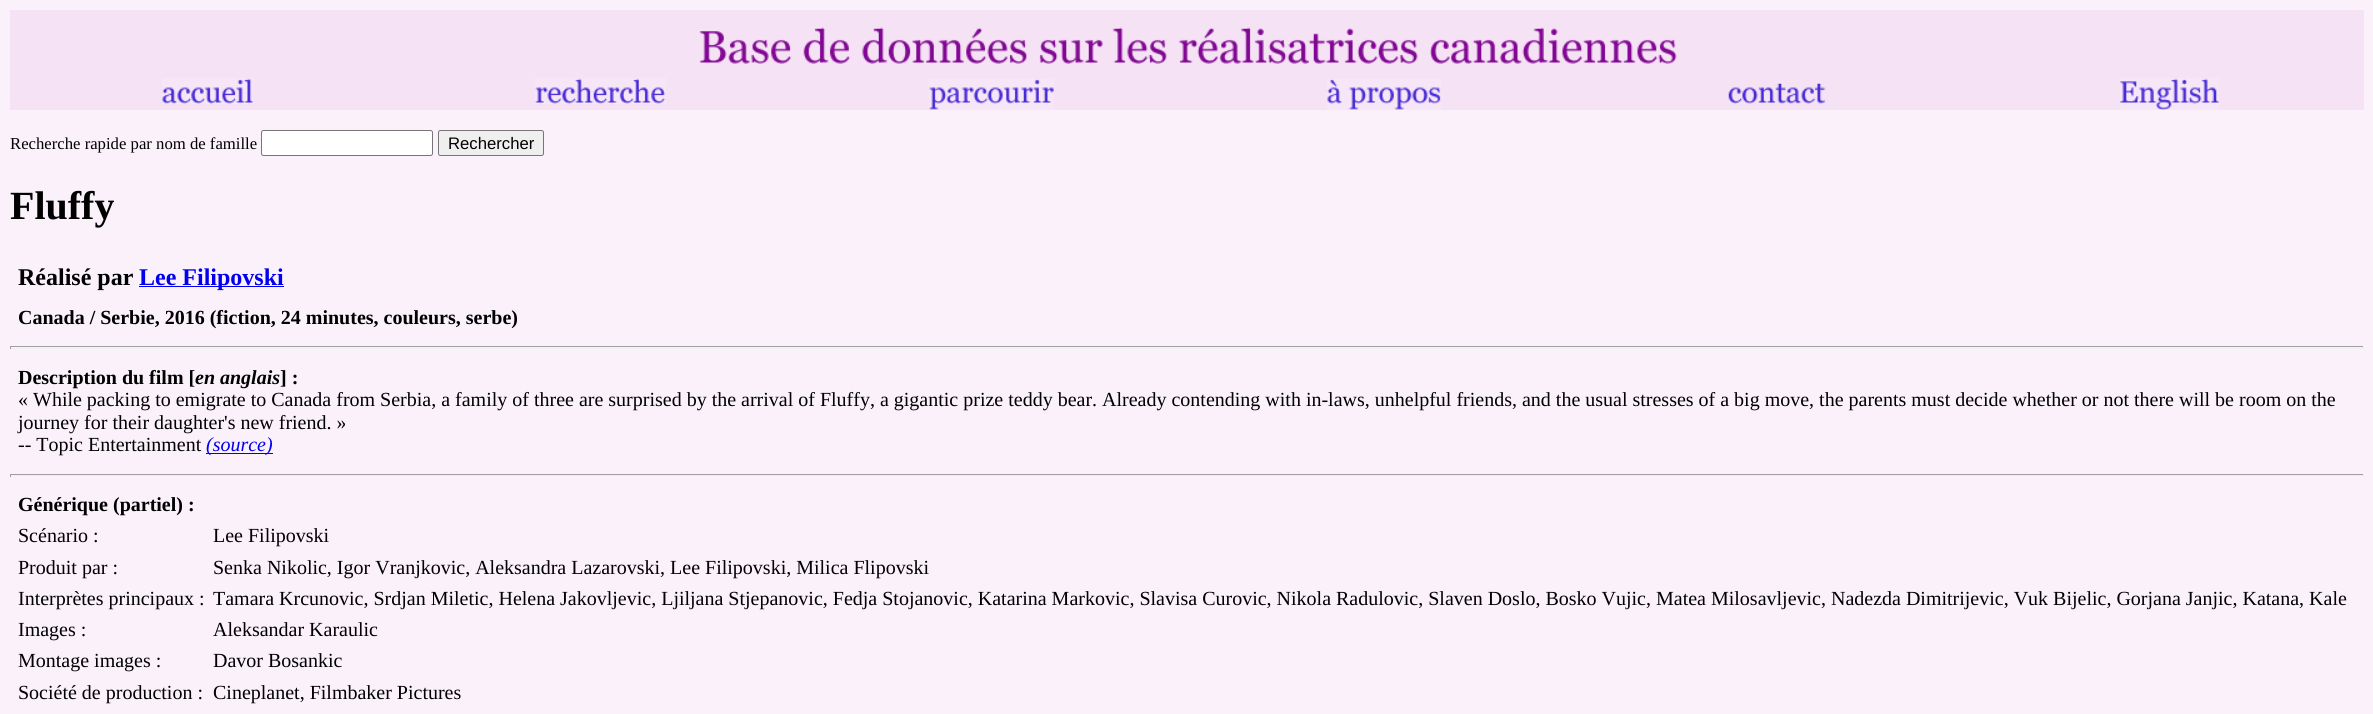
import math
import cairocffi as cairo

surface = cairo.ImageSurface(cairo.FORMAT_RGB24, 2373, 714)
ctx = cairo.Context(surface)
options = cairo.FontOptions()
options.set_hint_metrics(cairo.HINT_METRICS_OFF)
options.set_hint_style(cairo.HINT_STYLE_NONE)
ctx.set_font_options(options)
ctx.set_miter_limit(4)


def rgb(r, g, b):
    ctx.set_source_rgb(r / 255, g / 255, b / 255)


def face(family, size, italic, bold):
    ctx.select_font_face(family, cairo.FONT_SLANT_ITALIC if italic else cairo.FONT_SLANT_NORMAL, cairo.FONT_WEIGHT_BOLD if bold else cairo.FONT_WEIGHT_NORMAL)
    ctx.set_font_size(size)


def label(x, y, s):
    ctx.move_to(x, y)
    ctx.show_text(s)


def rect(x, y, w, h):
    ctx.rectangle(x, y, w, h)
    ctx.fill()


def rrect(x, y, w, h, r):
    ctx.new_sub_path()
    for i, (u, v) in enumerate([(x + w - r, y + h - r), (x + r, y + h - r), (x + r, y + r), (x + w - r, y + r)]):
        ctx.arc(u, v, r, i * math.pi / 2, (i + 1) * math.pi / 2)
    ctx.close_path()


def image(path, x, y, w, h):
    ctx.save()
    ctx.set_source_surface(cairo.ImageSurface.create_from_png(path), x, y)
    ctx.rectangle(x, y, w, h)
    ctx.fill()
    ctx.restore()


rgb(250, 241, 250)
ctx.paint()
rgb(245, 227, 245)
rect(10, 10, 2354, 100)
image('image0.png', 699, 27, 978, 37)
image('image1.png', 162, 78, 91, 26)
image('image2.png', 535, 78, 131, 26)
image('image3.png', 929, 79, 125, 31)
image('image4.png', 1327, 79, 114, 31)
image('image5.png', 1728, 83, 98, 21)
image('image6.png', 2120, 78, 99, 32)
face('Liberation Serif', 16.7, 0, 0)
rgb(0, 0, 0)
label(10, 149, 'Recherche rapide par nom de famille')
rgb(255, 255, 255)
rrect(261.5, 130.5, 171, 25, 2)
ctx.fill_preserve()
rgb(118, 118, 118)
ctx.set_line_width(1)
ctx.stroke()
rgb(239, 239, 239)
rrect(438.5, 130.5, 105, 25, 2)
ctx.fill_preserve()
rgb(118, 118, 118)
ctx.stroke()
face('Liberation Sans', 16.7, 0, 0)
rgb(0, 0, 0)
label(448, 149, 'Rechercher')
face('Liberation Serif', 40, 0, 1)
label(10, 219, 'Fluffy')
face('Liberation Serif', 24, 0, 1)
label(18, 285, 'Réalisé par')
rgb(0, 0, 238)
rect(139, 286, 145, 1)
label(139, 285, 'Lee Filipovski')
face('Liberation Serif', 20, 0, 1)
rgb(0, 0, 0)
label(18, 324, 'Canada / Serbie, 2016 (fiction, 24 minutes, couleurs, serbe)')
rgb(159, 159, 159)
rect(10, 346, 2354, 1)
rgb(238, 238, 238)
rect(2363, 346, 1, 3)
rect(10, 348, 2354, 1)
rgb(159, 159, 159)
rect(10, 346, 1, 3)
rgb(0, 0, 0)
label(18, 384, 'Description du film [')
face('Liberation Serif', 20, 1, 1)
label(195, 384, 'en anglais')
face('Liberation Serif', 20, 0, 1)
label(280, 384, '] :')
face('Liberation Serif', 20, 0, 0)
label(18, 406, '« While packing to emigrate to Canada from Serbia, a family of three are surprised by the arrival of Fluffy, a gigantic prize teddy bear. Already contending with in-laws, unhelpful friends, and the usual stresses of a big move, the parents must decide whether or not there will be room on the')
label(18, 429, 'journey for their daughter\'s new friend. »')
label(18, 451, '-- Topic Entertainment')
rgb(0, 0, 238)
rect(206, 453, 67, 1)
face('Liberation Serif', 20, 1, 0)
label(206, 451, '(source)')
rgb(159, 159, 159)
rect(10, 474, 2354, 1)
rgb(238, 238, 238)
rect(2363, 474, 1, 3)
rect(10, 475, 2354, 1)
rgb(159, 159, 159)
rect(10, 474, 1, 3)
face('Liberation Serif', 20, 0, 1)
rgb(0, 0, 0)
label(18, 511, 'Générique (partiel) :')
face('Liberation Serif', 20, 0, 0)
label(18, 542, 'Scénario :')
label(213, 542, 'Lee Filipovski')
label(18, 574, 'Produit par :')
label(213, 574, 'Senka Nikolic, Igor Vranjkovic, Aleksandra Lazarovski, Lee Filipovski, Milica Flipovski')
label(18, 605, 'Interprètes principaux :')
label(213, 605, 'Tamara Krcunovic, Srdjan Miletic, Helena Jakovljevic, Ljiljana Stjepanovic, Fedja Stojanovic, Katarina Markovic, Slavisa Curovic, Nikola Radulovic, Slaven Doslo, Bosko Vujic, Matea Milosavljevic, Nadezda Dimitrijevic, Vuk Bijelic, Gorjana Janjic, Katana, Kale')
label(18, 636, 'Images :')
label(213, 636, 'Aleksandar Karaulic')
label(18, 667, 'Montage images :')
label(213, 667, 'Davor Bosankic')
label(18, 699, 'Société de production :')
label(213, 699, 'Cineplanet, Filmbaker Pictures')
surface.write_to_png('render.png')
